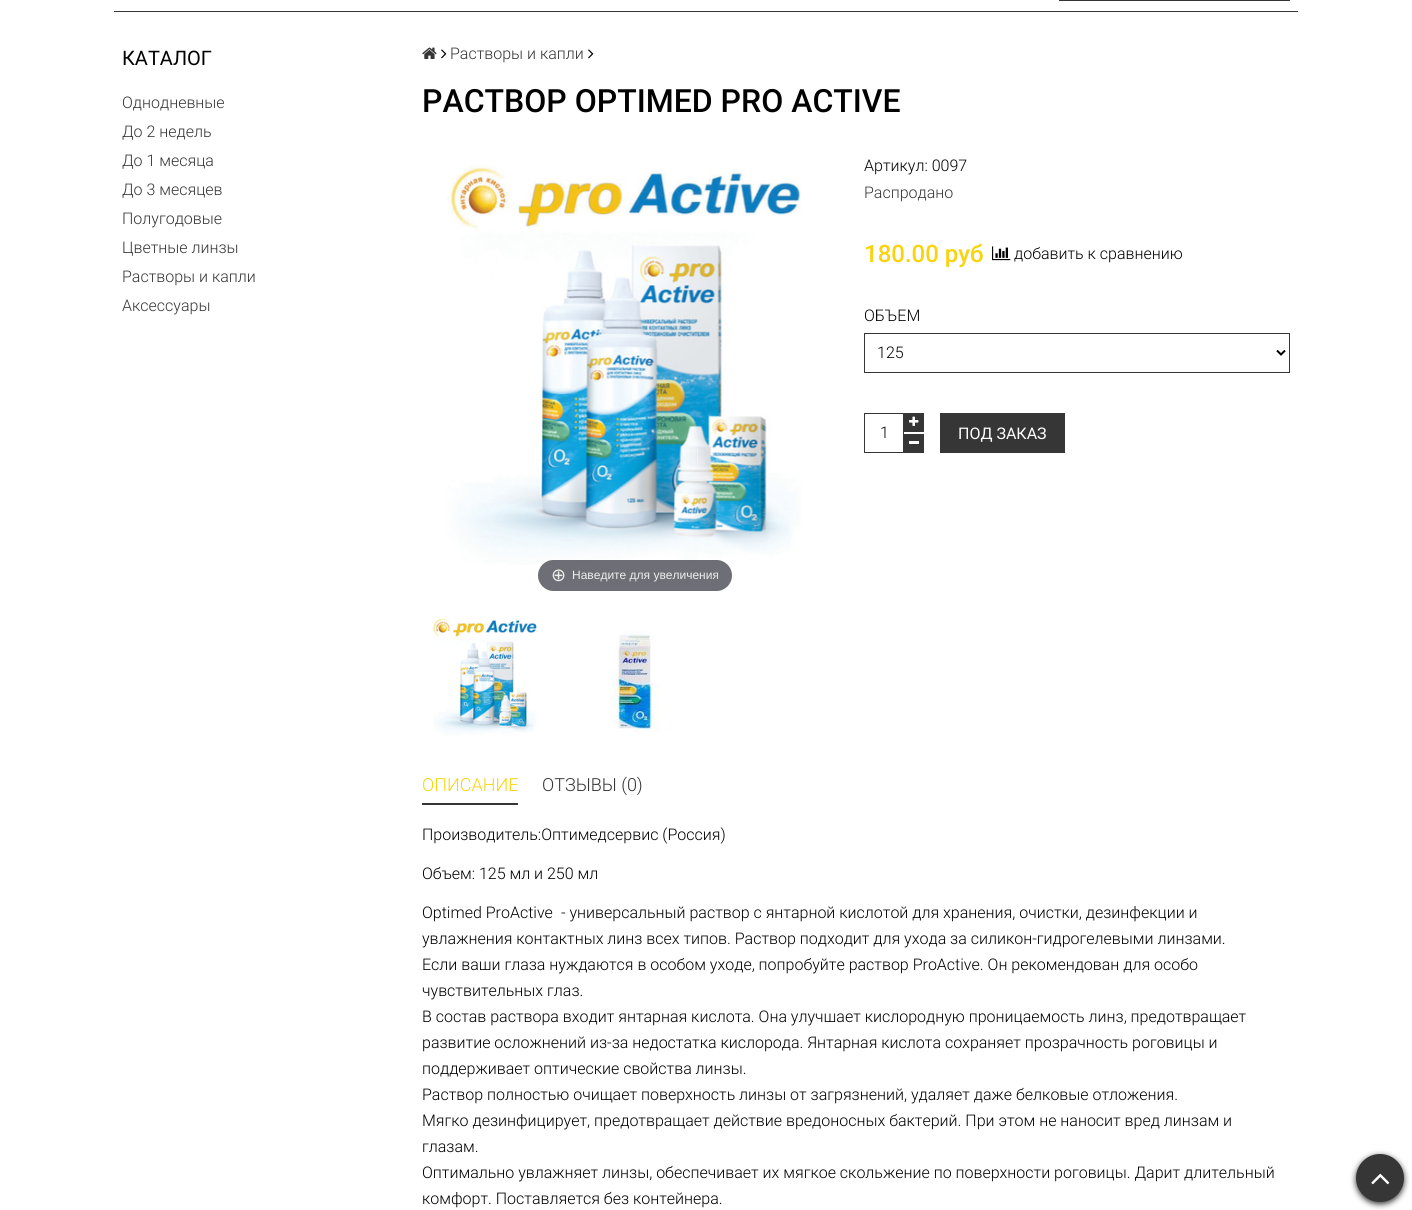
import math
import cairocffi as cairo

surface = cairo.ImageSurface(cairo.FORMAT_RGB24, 1412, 1210)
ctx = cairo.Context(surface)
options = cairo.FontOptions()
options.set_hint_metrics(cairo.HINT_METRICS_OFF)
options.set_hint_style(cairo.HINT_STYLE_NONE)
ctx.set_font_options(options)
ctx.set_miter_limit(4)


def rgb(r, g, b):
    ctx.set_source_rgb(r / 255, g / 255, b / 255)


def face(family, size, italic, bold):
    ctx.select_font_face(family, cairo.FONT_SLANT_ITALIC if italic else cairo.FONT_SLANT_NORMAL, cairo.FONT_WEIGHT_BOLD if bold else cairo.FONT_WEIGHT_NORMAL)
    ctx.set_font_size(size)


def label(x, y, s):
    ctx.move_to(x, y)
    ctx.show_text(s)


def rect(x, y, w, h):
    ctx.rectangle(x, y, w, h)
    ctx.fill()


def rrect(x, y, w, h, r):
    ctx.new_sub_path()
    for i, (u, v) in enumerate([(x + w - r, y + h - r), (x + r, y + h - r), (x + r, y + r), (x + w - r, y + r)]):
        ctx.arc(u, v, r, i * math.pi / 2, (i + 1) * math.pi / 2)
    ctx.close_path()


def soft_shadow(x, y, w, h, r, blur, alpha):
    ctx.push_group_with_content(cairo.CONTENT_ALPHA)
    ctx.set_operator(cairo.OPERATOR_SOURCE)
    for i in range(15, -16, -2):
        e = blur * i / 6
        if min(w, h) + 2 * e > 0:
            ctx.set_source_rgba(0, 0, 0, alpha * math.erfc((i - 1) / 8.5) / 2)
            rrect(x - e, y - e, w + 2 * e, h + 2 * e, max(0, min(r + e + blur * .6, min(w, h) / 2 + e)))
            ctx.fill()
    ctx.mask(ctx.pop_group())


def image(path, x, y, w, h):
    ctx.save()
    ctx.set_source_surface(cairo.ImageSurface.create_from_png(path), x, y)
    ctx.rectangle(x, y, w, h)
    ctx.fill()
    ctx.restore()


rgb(255, 255, 255)
ctx.paint()
rgb(54, 54, 54)
rect(114, 11, 1184, 1)
ctx.rectangle(1059.5, -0.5, 230, 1)
ctx.set_line_width(1)
ctx.stroke()
face('Roboto', 20, 0, 0)
rgb(0, 0, 0)
label(122, 65, 'КАТАЛОГ')
face('Roboto Light', 16, 0, 0)
rgb(54, 54, 54)
label(122, 108, 'Однодневные')
label(122, 137, 'До 2 недель')
label(122, 166, 'До 1 месяца')
label(122, 195, 'До 3 месяцев')
label(122, 224, 'Полугодовые')
label(122, 253, 'Цветные линзы')
label(122, 282, 'Растворы и капли')
label(122, 311, 'Аксессуары')
image('image0.png', 422, 47, 15, 12)
image('image1.png', 441, 49, 6, 10)
label(450, 59, 'Растворы и капли')
image('image1.png', 588, 49, 6, 10)
face('Roboto Medium', 32, 0, 0)
rgb(0, 0, 0)
label(422, 112, 'РАСТВОР OPTIMED PRO ACTIVE')
face('Roboto Light', 16, 0, 0)
label(864, 171, 'Артикул: 0097')
rgb(54, 54, 54)
label(864, 198, 'Распродано')
face('Roboto Medium', 24, 0, 0)
rgb(249, 211, 11)
label(864, 262, '180.00 руб')
image('image2.png', 992, 246, 19, 15)
face('Roboto Light', 16, 0, 0)
rgb(0, 0, 0)
label(1014, 259, 'добавить к сравнению')
label(864, 321, 'ОБЪЕМ')
ctx.rectangle(864.5, 333.5, 425, 39)
rgb(54, 54, 54)
ctx.stroke()
ctx.new_path()
ctx.move_to(1277, 350.5)
ctx.line_to(1281, 354.5)
ctx.line_to(1285, 350.5)
rgb(0, 0, 0)
ctx.set_line_width(2)
ctx.stroke()
label(877, 358, '125')
ctx.rectangle(864.5, 413.5, 39, 39)
rgb(54, 54, 54)
ctx.set_line_width(1)
ctx.stroke()
rgb(0, 0, 0)
label(880, 438, '1')
rgb(54, 54, 54)
rect(904, 413, 20, 19)
image('image3.png', 909, 416, 10, 10)
rect(904, 434, 20, 19)
rgb(255, 255, 255)
rect(909, 441, 10, 3)
rgb(54, 54, 54)
rect(940, 413, 125, 40)
face('Roboto', 16, 0, 0)
rgb(255, 255, 255)
label(958, 439, 'ПОД ЗАКАЗ')
image('image4.png', 447, 165, 354, 400)
ctx.set_source_rgba(0.192, 0.2, 0.239, 0.7)
rrect(538, 560, 194, 31, 15.5)
ctx.fill()
face('DejaVu Sans', 18, 0, 0)
rgb(238, 238, 238)
label(551, 581, '⊕')
face('Liberation Sans', 12, 0, 0)
label(572, 579, 'Наведите для увеличения')
image('image5.png', 433, 618, 104, 118)
image('image6.png', 609, 631, 52, 101)
rgb(54, 54, 54)
rect(422, 803, 96, 2)
face('Roboto Light', 18, 0, 0)
rgb(249, 211, 11)
label(422, 791, 'ОПИСАНИЕ')
rgb(54, 54, 54)
label(542, 791, 'ОТЗЫВЫ (0)')
face('Roboto Light', 16, 0, 0)
rgb(0, 0, 0)
label(422, 840, 'Производитель:Оптимедсервис (Россия)')
label(422, 879, 'Объем: 125 мл и 250 мл')
label(422, 918, 'Optimed ProActive')
label(561, 918, '- универсальный раствор с янтарной кислотой для хранения, очистки, дезинфекции и')
label(422, 944, 'увлажнения контактных линз всех типов. Раствор подходит для ухода за силикон-гидрогелевыми линзами.')
label(422, 970, 'Если ваши глаза нуждаются в особом уходе, попробуйте раствор ProActive. Он рекомендован для особо')
label(422, 996, 'чувствительных глаз.')
label(422, 1022, 'В состав раствора входит янтарная кислота. Она улучшает кислородную проницаемость линз, предотвращает')
label(422, 1048, 'развитие осложнений из-за недостатка кислорода. Янтарная кислота сохраняет прозрачность роговицы и')
label(422, 1074, 'поддерживает оптические свойства линзы.')
label(422, 1100, 'Раствор полностью очищает поверхность линзы от загрязнений, удаляет даже белковые отложения.')
label(422, 1126, 'Мягко дезинфицирует, предотвращает действие вредоносных бактерий. При этом не наносит вред линзам и')
label(422, 1152, 'глазам.')
label(422, 1178, 'Оптимально увлажняет линзы, обеспечивает их мягкое скольжение по поверхности роговицы. Дарит длительный')
label(422, 1204, 'комфорт. Поставляется без контейнера.')
rgb(51, 51, 51)
soft_shadow(1356, 1156, 48, 48, 24, 3, 1)
rgb(54, 54, 54)
ctx.arc(1380, 1178, 23, 0, 2 * math.pi)
ctx.fill_preserve()
ctx.set_line_width(2)
ctx.stroke()
image('image7.png', 1371, 1173, 19, 12)
surface.write_to_png('render.png')
